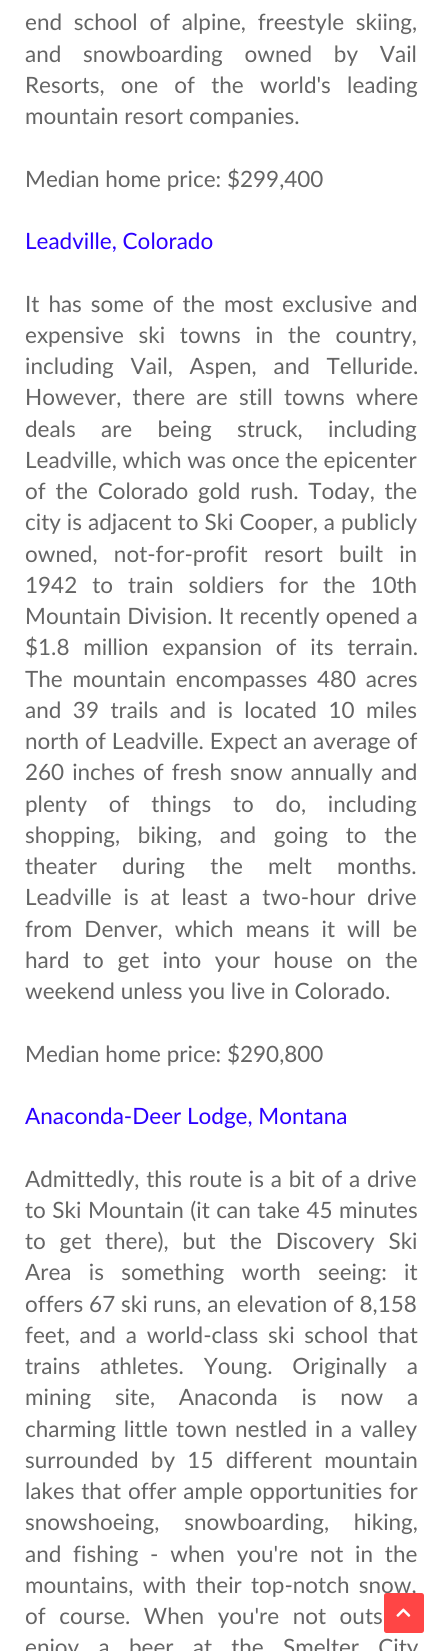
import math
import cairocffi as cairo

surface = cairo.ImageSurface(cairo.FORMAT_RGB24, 442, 1651)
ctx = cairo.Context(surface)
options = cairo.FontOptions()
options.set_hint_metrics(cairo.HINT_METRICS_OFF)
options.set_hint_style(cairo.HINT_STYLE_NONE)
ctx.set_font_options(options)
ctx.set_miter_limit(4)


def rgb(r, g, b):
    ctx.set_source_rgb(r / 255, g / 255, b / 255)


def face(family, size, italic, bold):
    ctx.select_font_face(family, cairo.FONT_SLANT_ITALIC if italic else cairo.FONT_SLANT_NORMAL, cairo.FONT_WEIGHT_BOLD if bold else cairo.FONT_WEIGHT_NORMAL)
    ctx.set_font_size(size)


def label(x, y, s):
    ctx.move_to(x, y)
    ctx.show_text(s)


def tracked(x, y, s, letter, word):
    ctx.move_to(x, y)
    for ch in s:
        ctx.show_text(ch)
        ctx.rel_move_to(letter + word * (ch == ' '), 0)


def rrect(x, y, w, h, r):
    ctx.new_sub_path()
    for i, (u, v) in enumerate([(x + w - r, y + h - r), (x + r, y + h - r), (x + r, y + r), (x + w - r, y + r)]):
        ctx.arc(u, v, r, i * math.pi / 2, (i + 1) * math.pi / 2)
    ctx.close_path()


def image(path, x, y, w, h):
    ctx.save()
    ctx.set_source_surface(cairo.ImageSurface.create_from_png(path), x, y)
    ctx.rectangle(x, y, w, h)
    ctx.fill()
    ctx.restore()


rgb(255, 255, 255)
ctx.paint()
face('Lato', 22.5, 0, 0)
rgb(101, 101, 101)
tracked(25, 30, 'end school of alpine, freestyle skiing,', 0, 6)
tracked(25, 62, 'and snowboarding owned by Vail', 0, 16)
tracked(25, 93, 'Resorts, one of the world\'s leading', 0, 10.5)
label(25, 124, 'mountain resort companies.')
label(25, 187, 'Median home price: $299,400')
rgb(43, 0, 254)
label(25, 249, 'Leadville, Colorado')
rgb(101, 101, 101)
tracked(25, 312, 'It has some of the most exclusive and', 0, 3.25)
tracked(25, 343, 'expensive ski towns in the country,', 0, 9)
tracked(25, 374, 'including Vail, Aspen, and Telluride.', 0, 11)
tracked(25, 405, 'However, there are still towns where', 0, 5.5)
tracked(25, 437, 'deals are being struck, including', 0, 19.5)
label(25, 468, 'Leadville, which was once the epicenter')
tracked(25, 499, 'of the Colorado gold rush. Today, the', 0, 4)
tracked(25, 530, 'city is adjacent to Ski Cooper, a publicly', 0, 0.25)
tracked(25, 562, 'owned, not-for-profit resort built in', 0, 10.5)
tracked(25, 593, '1942 to train soldiers for the 10th', 0, 9.25)
tracked(25, 624, 'Mountain Division. It recently opened a', 0, 0.5)
tracked(25, 655, '$1.8 million expansion of its terrain.', 0, 8)
tracked(25, 687, 'The mountain encompasses 480 acres', 0, 4)
tracked(25, 718, 'and 39 trails and is located 10 miles', 0, 5.75)
tracked(25, 749, 'north of Leadville. Expect an average of', 0, 0.25)
tracked(25, 780, '260 inches of fresh snow annually and', 0, 2.25)
tracked(25, 812, 'plenty of things to do, including', 0, 16)
tracked(25, 843, 'shopping, biking, and going to the', 0, 12)
tracked(25, 874, 'theater during the melt months.', 0, 19.5)
tracked(25, 905, 'Leadville is at least a two-hour drive', 0, 6)
tracked(25, 937, 'from Denver, which means it will be', 0, 6.25)
tracked(25, 968, 'hard to get into your house on the', 0, 7.75)
label(25, 999, 'weekend unless you live in Colorado.')
label(25, 1062, 'Median home price: $290,800')
rgb(43, 0, 254)
label(25, 1124, 'Anaconda-Deer Lodge, Montana')
rgb(101, 101, 101)
tracked(25, 1187, 'Admittedly, this route is a bit of a drive', 0, 1)
tracked(25, 1218, 'to Ski Mountain (it can take 45 minutes', 0, 0.75)
tracked(25, 1249, 'to get there), but the Discovery Ski', 0, 8)
tracked(25, 1280, 'Area is something worth seeing: it', 0, 11.5)
label(25, 1312, 'offers 67 ski runs, an elevation of 8,158')
tracked(25, 1343, 'feet, and a world-class ski school that', 0, 4)
tracked(25, 1374, 'trains athletes. Young. Originally a', 0, 14)
tracked(25, 1405, 'mining site, Anaconda is now a', 0, 18)
tracked(25, 1437, 'charming little town nestled in a valley', 0, 2.25)
tracked(25, 1468, 'surrounded by 15 different mountain', 0, 6.5)
tracked(25, 1499, 'lakes that offer ample opportunities for', 0, 1)
tracked(25, 1530, 'snowshoeing, snowboarding, hiking,', 0, 19)
tracked(25, 1562, 'and fishing - when you\'re not in the', 0, 6)
tracked(25, 1593, 'mountains, with their top-notch snow,', 0, 3.5)
tracked(25, 1624, 'of course. When you\'re not outs', 0, 7.75)
tracked(25, 1655, 'enjoy a beer at the Smelter City', 0, 13.5)
rgb(255, 69, 69)
rrect(384, 1593, 40, 40, 2.5)
ctx.fill()
image('image0.png', 396, 1608, 15, 9)
surface.write_to_png('render.png')
